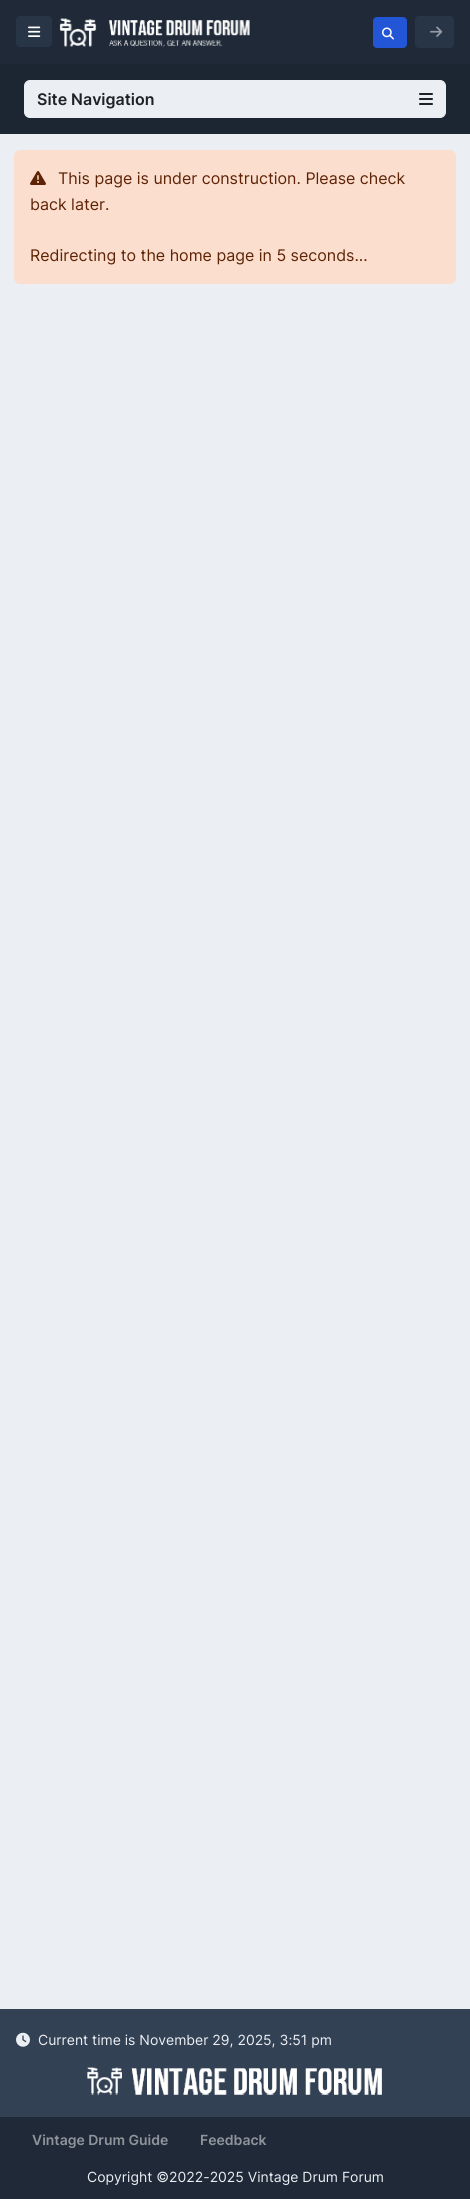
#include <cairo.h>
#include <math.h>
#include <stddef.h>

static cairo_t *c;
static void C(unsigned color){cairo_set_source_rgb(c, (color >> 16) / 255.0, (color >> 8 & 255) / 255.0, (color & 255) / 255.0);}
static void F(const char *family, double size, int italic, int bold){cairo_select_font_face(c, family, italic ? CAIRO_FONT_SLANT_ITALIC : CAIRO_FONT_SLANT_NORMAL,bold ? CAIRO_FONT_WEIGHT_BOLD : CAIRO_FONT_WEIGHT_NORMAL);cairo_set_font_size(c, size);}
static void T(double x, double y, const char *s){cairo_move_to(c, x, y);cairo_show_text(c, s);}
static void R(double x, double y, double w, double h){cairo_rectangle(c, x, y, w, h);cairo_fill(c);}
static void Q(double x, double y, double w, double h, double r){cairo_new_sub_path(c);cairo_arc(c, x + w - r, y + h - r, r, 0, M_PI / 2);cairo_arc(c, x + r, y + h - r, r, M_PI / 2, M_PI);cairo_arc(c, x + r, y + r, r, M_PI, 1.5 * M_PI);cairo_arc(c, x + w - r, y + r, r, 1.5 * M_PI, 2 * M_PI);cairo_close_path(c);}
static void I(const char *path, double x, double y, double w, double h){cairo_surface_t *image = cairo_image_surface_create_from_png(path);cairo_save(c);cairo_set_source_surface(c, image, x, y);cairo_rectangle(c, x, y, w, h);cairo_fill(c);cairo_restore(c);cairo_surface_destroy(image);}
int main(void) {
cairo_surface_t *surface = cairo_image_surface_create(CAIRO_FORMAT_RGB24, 470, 2199);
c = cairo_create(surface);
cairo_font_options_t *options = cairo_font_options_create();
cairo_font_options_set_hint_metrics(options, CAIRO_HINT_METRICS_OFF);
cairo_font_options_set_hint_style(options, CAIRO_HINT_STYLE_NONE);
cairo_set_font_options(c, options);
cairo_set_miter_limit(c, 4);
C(0xebeef2);
cairo_paint(c);
C(0x1f2937);
R(0,0,470,64);
C(0x283547);
Q(16.5,16.5,35,30,3.5);
cairo_fill_preserve(c);
cairo_set_line_width(c,1);
cairo_stroke(c);
I("1.png",28,26,13,11);
I("2.png",59,18,191,29);
C(0x2356d7);
Q(373.5,17.5,33,30,3.5);
cairo_fill_preserve(c);
cairo_stroke(c);
I("3.png",382,27,12,13);
C(0x283547);
Q(415.5,16.5,38,31,3.5);
cairo_fill_preserve(c);
cairo_stroke(c);
I("4.png",430,26,13,11);
C(0x1c2532);
R(0,64,470,70);
C(0xebeef2);
Q(24.5,80.5,421,37,5.5);
cairo_fill_preserve(c);
cairo_stroke(c);
F("Inter SemiBold",16,0,0);
C(0x1e2226);
T(37,105,"Site Navigation");
I("5.png",419,93,14,12);
C(0xfbdece);
Q(14,150,442,134,6);
cairo_fill(c);
I("6.png",30,171,16,14);
F("Inter",16,0,0);
C(0x5e2305);
T(58,184,"This page is under construction. Please check");
T(30,210,"back later.");
T(30,261,"Redirecting to the home page in 5 seconds...");
C(0x334155);
R(0,2009,470,108);
I("7.png",16,2032,14,15);
F("Inter",14,0,0);
C(0xebeef2);
T(38,2045,"Current time is November 29, 2025, 3:51 pm");
I("8.png",87,2067,295,28);
C(0x1f2937);
R(0,2117,470,82);
F("Inter SemiBold",14,0,0);
C(0x8f949b);
T(32,2145,"Vintage Drum Guide");
T(200,2145,"Feedback");
F("Inter",14,0,0);
C(0xebeef2);
T(87,2182,"Copyright ©2022-2025 Vintage Drum Forum");
cairo_surface_write_to_png(surface, "o.png");
cairo_font_options_destroy(options);
cairo_destroy(c);
cairo_surface_destroy(surface);
return 0;
}
